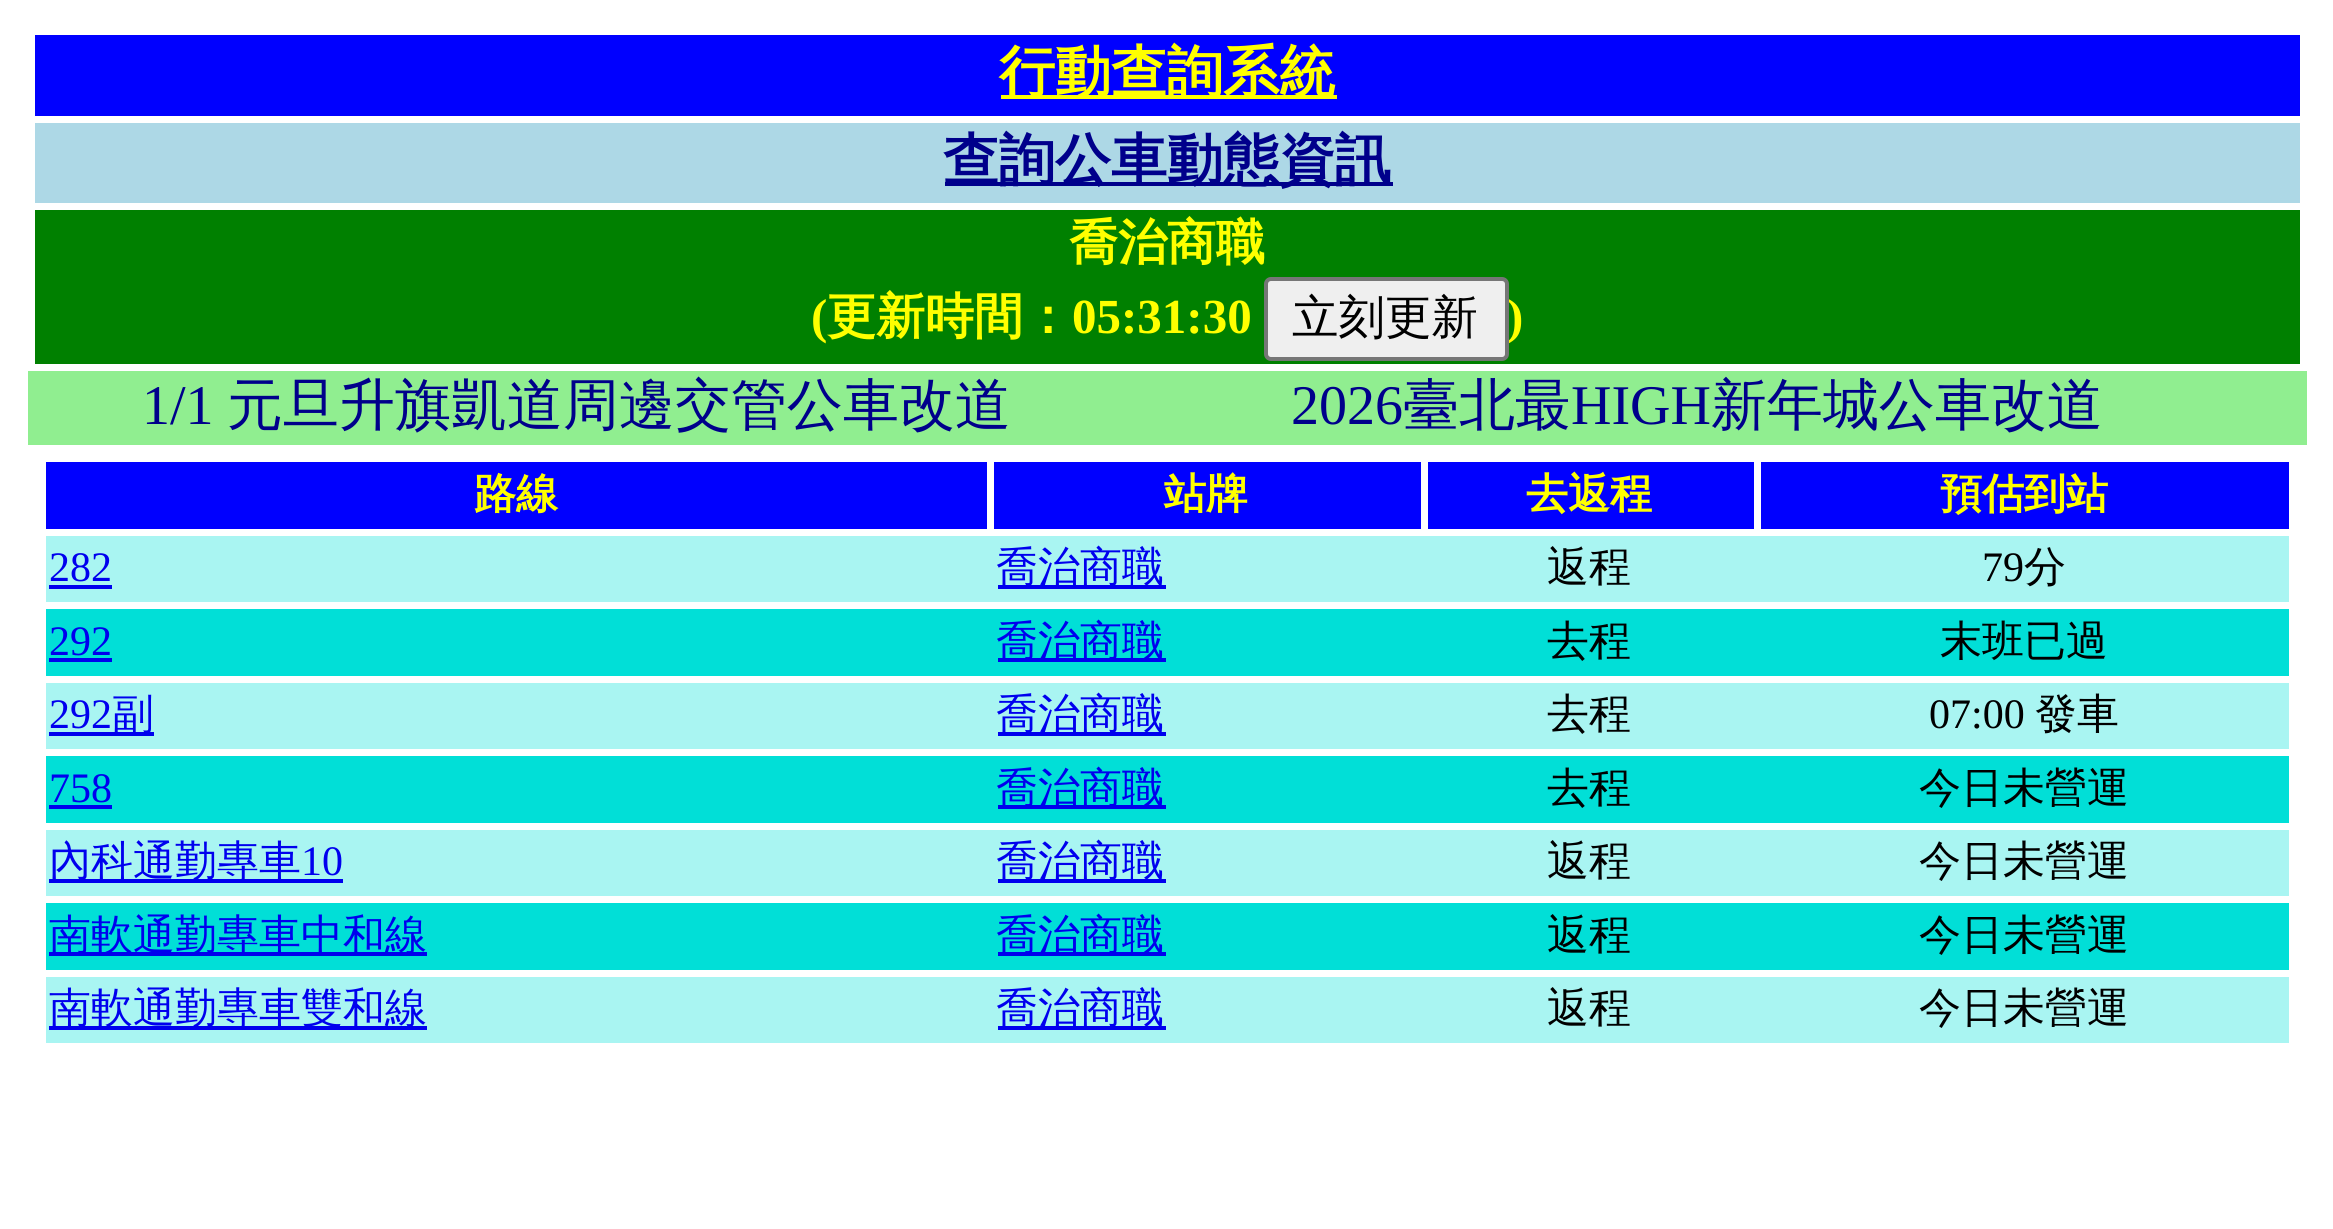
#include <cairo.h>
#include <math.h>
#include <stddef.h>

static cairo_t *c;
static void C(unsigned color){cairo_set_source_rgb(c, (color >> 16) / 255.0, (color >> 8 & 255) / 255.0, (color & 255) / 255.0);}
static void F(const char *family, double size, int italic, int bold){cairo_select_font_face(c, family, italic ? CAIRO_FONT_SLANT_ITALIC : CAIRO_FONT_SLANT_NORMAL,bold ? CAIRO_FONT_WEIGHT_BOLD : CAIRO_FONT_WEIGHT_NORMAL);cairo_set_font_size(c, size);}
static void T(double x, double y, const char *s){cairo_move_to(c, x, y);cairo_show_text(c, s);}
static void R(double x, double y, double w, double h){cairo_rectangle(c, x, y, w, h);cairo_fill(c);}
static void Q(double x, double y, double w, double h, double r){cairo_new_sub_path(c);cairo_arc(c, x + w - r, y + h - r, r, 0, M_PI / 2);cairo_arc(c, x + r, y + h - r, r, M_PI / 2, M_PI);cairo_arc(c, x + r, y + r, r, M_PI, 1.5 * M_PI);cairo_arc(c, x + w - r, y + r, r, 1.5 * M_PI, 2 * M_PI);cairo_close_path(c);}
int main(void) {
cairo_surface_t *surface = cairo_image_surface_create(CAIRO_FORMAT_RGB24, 2333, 1229);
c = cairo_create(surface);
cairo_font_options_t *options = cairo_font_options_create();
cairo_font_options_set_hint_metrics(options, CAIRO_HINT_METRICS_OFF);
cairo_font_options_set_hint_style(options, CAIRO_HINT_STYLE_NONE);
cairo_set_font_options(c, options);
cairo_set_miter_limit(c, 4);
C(0xffffff);
cairo_paint(c);
C(0x0000ff);
R(35,35,2265,81);
C(0xffff00);
R(1001,95,336,4);
F("WenQuanYi Zen Hei",56,0,1);
T(999,91,"行動查詢系統");
C(0xadd8e6);
R(35,123,2265,80);
C(0x00008b);
R(945,182,448,4);
T(943,179,"查詢公車動態資訊");
C(0x008000);
R(35,210,2265,154);
F("WenQuanYi Zen Hei",49,0,1);
C(0xffff00);
T(1069,259,"喬治商職");
F("Liberation Serif",49,0,1);
T(811,333,"(");
F("WenQuanYi Zen Hei",49,0,1);
T(827,333,"更新時間：");
F("Liberation Serif",49,0,1);
T(1072,333,"05:31:30");
T(1507,333,")");
C(0xefefef);
Q(1266,279,241,80,5);
cairo_fill_preserve(c);
C(0x767676);
cairo_set_line_width(c,4);
cairo_stroke(c);
F("WenQuanYi Zen Hei Medium",46.5,0,0);
C(0x000000);
T(1292,333,"立刻更新");
C(0x90ee90);
R(28,371,2279,74);
F("Liberation Serif",56,0,0);
C(0x00008b);
T(142,424,"1/1");
F("WenQuanYi Zen Hei Medium",56,0,0);
T(227,424,"元旦升旗凱道周邊交管公車改道");
F("Liberation Serif",56,0,0);
T(1291,424,"2026");
F("WenQuanYi Zen Hei Medium",56,0,0);
T(1403,424,"臺北最");
F("Liberation Serif",56,0,0);
T(1571,424,"HIGH");
F("WenQuanYi Zen Hei Medium",56,0,0);
T(1711,424,"新年城公車改道");
C(0x0000ff);
R(46,462,941,67);
F("WenQuanYi Zen Hei",42,0,1);
C(0xffff00);
T(474,508,"路線");
C(0x0000ff);
R(994,462,427,67);
C(0xffff00);
T(1164,508,"站牌");
C(0x0000ff);
R(1428,462,326,67);
C(0xffff00);
T(1526,508,"去返程");
C(0x0000ff);
R(1761,462,528,67);
C(0xffff00);
T(1940,508,"預估到站");
C(0xa9f5f2);
R(46,536,2243,66);
F("Liberation Serif",42,0,0);
C(0x0000ee);
T(49,581,"282");
R(49,585,63,4);
R(998,585,168,4);
F("WenQuanYi Zen Hei Medium",42,0,0);
T(996,581,"喬治商職");
C(0x000000);
T(1547,581,"返程");
F("Liberation Serif",42,0,0);
T(1982,581,"79");
F("WenQuanYi Zen Hei Medium",42,0,0);
T(2024,581,"分");
C(0x01dfd7);
R(46,609,2243,67);
F("Liberation Serif",42,0,0);
C(0x0000ee);
T(49,655,"292");
R(49,658,63,4);
R(998,658,168,4);
F("WenQuanYi Zen Hei Medium",42,0,0);
T(996,655,"喬治商職");
C(0x000000);
T(1547,655,"去程");
T(1940,655,"末班已過");
C(0xa9f5f2);
R(46,683,2243,66);
F("Liberation Serif",42,0,0);
C(0x0000ee);
T(49,728,"292");
R(49,732,105,4);
F("WenQuanYi Zen Hei Medium",42,0,0);
T(112,728,"副");
R(998,732,168,4);
T(996,728,"喬治商職");
C(0x000000);
T(1547,728,"去程");
F("Liberation Serif",42,0,0);
T(1929,728,"07:00");
F("WenQuanYi Zen Hei Medium",42,0,0);
T(2035,728,"發車");
C(0x01dfd7);
R(46,756,2243,67);
F("Liberation Serif",42,0,0);
C(0x0000ee);
T(49,802,"758");
R(49,805,63,4);
R(998,805,168,4);
F("WenQuanYi Zen Hei Medium",42,0,0);
T(996,802,"喬治商職");
C(0x000000);
T(1547,802,"去程");
T(1919,802,"今日未營運");
C(0xa9f5f2);
R(46,830,2243,66);
C(0x0000ee);
R(49,879,294,4);
T(49,875,"內科通勤專車");
F("Liberation Serif",42,0,0);
T(301,875,"10");
R(998,879,168,4);
F("WenQuanYi Zen Hei Medium",42,0,0);
T(996,875,"喬治商職");
C(0x000000);
T(1547,875,"返程");
T(1919,875,"今日未營運");
C(0x01dfd7);
R(46,903,2243,67);
C(0x0000ee);
R(49,952,378,4);
T(49,949,"南軟通勤專車中和線");
R(998,952,168,4);
T(996,949,"喬治商職");
C(0x000000);
T(1547,949,"返程");
T(1919,949,"今日未營運");
C(0xa9f5f2);
R(46,977,2243,66);
C(0x0000ee);
R(49,1026,378,4);
T(49,1022,"南軟通勤專車雙和線");
R(998,1026,168,4);
T(996,1022,"喬治商職");
C(0x000000);
T(1547,1022,"返程");
T(1919,1022,"今日未營運");
cairo_surface_write_to_png(surface, "o.png");
cairo_font_options_destroy(options);
cairo_destroy(c);
cairo_surface_destroy(surface);
return 0;
}
